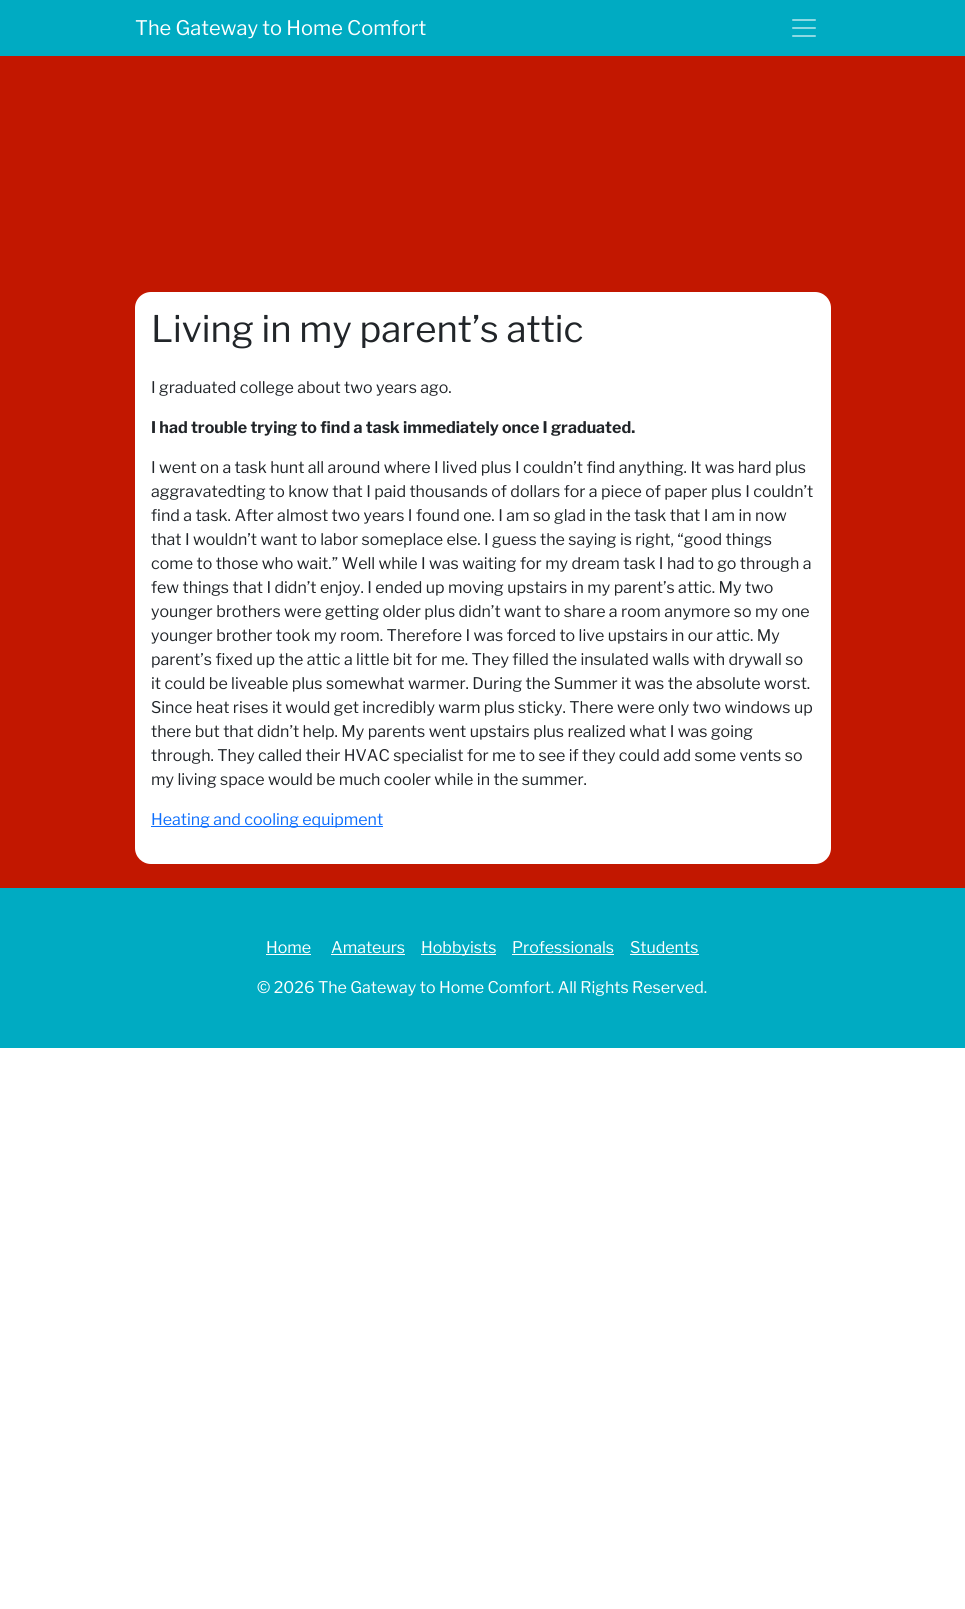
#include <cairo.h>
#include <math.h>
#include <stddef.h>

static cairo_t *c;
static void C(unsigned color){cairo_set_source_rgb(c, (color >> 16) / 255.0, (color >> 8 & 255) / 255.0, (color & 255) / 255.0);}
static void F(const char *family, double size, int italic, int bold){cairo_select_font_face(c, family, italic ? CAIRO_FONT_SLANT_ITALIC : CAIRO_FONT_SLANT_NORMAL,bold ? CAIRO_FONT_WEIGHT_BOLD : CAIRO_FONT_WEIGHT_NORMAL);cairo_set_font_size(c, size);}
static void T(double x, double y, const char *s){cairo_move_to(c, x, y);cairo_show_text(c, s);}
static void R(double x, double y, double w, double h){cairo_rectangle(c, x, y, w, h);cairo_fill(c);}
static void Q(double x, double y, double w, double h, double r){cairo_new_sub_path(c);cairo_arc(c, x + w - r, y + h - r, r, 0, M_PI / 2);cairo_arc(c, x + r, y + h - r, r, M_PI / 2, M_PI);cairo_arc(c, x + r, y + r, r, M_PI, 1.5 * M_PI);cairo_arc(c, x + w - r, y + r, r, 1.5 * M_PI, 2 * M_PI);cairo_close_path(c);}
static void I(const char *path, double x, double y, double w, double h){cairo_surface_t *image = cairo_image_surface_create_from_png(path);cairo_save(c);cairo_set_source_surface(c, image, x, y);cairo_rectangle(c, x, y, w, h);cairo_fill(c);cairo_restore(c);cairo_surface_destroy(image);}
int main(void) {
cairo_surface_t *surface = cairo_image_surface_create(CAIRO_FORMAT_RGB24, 965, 1609);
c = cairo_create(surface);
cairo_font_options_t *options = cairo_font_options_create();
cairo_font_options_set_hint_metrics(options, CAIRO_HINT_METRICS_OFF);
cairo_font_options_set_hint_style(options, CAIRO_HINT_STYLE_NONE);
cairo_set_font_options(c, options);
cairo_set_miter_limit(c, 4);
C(0xffffff);
cairo_paint(c);
C(0x00abc2);
R(0,0,965,56);
F("Libre Franklin",20,0,0);
C(0xffffff);
T(135,35,"The Gateway to Home Comfort");
I("1.png",792,19,24,18);
C(0xc21700);
R(0,56,965,832);
C(0xffffff);
Q(135,292,696,572,16);
cairo_fill(c);
F("Libre Franklin",36.5,0,0);
C(0x212529);
T(151,342,"Living in my parent’s attic");
F("Libre Franklin",16,0,0);
T(151,393,"I graduated college about two years ago.");
F("Libre Franklin",16,0,1);
T(151,433,"I had trouble trying to find a task immediately once I graduated.");
F("Libre Franklin",16,0,0);
T(151,473,"I went on a task hunt all around where I lived plus I couldn’t find anything. It was hard plus");
T(151,497,"aggravatedting to know that I paid thousands of dollars for a piece of paper plus I couldn’t");
T(151,521,"find a task. After almost two years I found one. I am so glad in the task that I am in now");
T(151,545,"that I wouldn’t want to labor someplace else. I guess the saying is right, “good things");
T(151,569,"come to those who wait.” Well while I was waiting for my dream task I had to go through a");
T(151,593,"few things that I didn’t enjoy. I ended up moving upstairs in my parent’s attic. My two");
T(151,617,"younger brothers were getting older plus didn’t want to share a room anymore so my one");
T(151,641,"younger brother took my room. Therefore I was forced to live upstairs in our attic. My");
T(151,665,"parent’s fixed up the attic a little bit for me. They filled the insulated walls with drywall so");
T(151,689,"it could be liveable plus somewhat warmer. During the Summer it was the absolute worst.");
T(151,713,"Since heat rises it would get incredibly warm plus sticky. There were only two windows up");
T(151,737,"there but that didn’t help. My parents went upstairs plus realized what I was going");
T(151,761,"through. They called their HVAC specialist for me to see if they could add some vents so");
T(151,785,"my living space would be much cooler while in the summer.");
C(0x0d6efd);
R(151,826,232,1);
T(151,825,"Heating and cooling equipment");
C(0x00abc2);
R(0,888,965,160);
C(0xffffff);
T(266,953,"Home");
R(266,954,45,1);
T(331,953,"Amateurs");
R(331,954,74,1);
R(421,954,75,1);
T(421,953,"Hobbyists");
T(512,953,"Professionals");
R(512,954,102,1);
T(630,953,"Students");
R(630,954,69,1);
T(257,993,"© 2026 The Gateway to Home Comfort. All Rights Reserved.");
cairo_surface_write_to_png(surface, "o.png");
cairo_font_options_destroy(options);
cairo_destroy(c);
cairo_surface_destroy(surface);
return 0;
}
